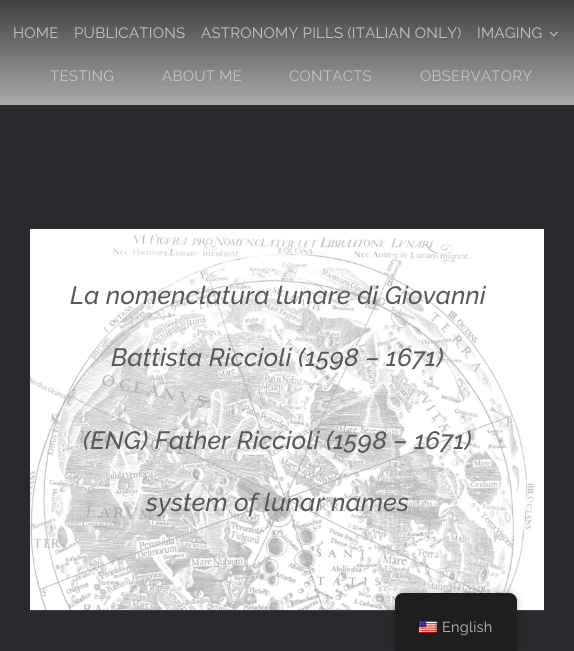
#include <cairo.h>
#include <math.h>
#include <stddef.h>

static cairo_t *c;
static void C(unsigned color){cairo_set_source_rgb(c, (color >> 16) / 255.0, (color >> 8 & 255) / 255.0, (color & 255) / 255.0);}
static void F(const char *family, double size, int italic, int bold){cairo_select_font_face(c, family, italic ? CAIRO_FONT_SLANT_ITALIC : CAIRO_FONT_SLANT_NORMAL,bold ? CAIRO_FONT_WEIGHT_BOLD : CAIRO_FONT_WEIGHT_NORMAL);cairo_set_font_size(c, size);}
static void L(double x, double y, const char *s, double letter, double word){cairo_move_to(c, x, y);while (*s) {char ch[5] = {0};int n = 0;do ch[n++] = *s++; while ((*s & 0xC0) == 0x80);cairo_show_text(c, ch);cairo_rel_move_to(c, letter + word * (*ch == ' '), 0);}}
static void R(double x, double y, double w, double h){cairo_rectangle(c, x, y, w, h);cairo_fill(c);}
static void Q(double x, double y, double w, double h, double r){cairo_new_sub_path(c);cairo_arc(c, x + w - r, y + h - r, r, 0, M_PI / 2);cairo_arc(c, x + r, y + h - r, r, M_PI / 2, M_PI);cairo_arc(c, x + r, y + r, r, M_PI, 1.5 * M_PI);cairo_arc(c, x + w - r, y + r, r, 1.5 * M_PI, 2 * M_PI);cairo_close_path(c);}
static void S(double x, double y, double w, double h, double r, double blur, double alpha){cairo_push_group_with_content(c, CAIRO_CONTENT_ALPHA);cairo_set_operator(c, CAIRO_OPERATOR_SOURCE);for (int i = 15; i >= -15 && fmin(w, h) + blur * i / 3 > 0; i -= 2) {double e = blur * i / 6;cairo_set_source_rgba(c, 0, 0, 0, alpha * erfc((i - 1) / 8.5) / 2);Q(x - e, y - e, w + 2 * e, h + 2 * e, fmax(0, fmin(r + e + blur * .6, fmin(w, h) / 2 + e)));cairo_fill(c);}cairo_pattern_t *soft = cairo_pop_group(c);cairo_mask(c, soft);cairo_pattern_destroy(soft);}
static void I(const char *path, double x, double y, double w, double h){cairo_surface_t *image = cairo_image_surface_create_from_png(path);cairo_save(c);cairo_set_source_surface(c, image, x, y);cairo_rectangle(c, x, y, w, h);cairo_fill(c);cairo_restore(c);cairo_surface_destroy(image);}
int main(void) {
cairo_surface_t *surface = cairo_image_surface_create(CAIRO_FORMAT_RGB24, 574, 651);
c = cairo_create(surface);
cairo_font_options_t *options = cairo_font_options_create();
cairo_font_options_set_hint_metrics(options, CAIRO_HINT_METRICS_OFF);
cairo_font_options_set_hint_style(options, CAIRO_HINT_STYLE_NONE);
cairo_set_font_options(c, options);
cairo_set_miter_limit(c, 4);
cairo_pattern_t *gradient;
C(0x282a2d);
cairo_paint(c);
gradient = cairo_pattern_create_linear(287,0,287,105);
cairo_pattern_add_color_stop_rgba(gradient,0,0.247,0.247,0.247,1);
cairo_pattern_add_color_stop_rgba(gradient,1,0.667,0.667,0.667,1);
cairo_set_source(c,gradient);
cairo_pattern_destroy(gradient);
R(0,0,574,105);
F("Raleway",15,0,0);
C(0xc4c4c4);
L(13,38,"HOME",.25,0);
L(74,38,"PUBLICATIONS",.25,0);
L(201,38,"ASTRONOMY PILLS (ITALIAN ONLY)",.25,0);
L(477,38,"IMAGING",.25,0);
I("1.png",549,31,9,6);
L(50,81,"TESTING",.25,0);
L(162,81,"ABOUT ME",.25,0);
L(289,81,"CONTACTS",.25,0);
L(420,81,"OBSERVATORY",.25,0);
I("2.png",30,229,514,381);
F("Raleway Medium",25,1,0);
C(0x55585c);
L(70,304,"La nomenclatura lunare di Giovanni",.25,0);
L(111,366,"Battista Riccioli (1598 – 1671)",.25,0);
L(83,449,"(ENG) Father Riccioli (1598 – 1671)",.25,0);
L(146,511,"system of lunar names",.25,0);
cairo_new_path(c);
cairo_move_to(c,30,610.5);
cairo_line_to(c,544,610.5);
C(0x535557);
cairo_set_line_width(c,1);
cairo_set_dash(c,(double[]){1,1},2,0);
cairo_stroke(c);
C(0x000000);
S(395,593,122,58,8,4,.25);
C(0x1e1e1e);
cairo_new_path(c);
cairo_move_to(c,403,593);
cairo_line_to(c,509,593);
cairo_curve_to(c,513.5,593,517,596.5,517,601);
cairo_line_to(c,517,651);
cairo_line_to(c,395,651);
cairo_line_to(c,395,601);
cairo_curve_to(c,395,596.5,398.5,593,403,593);
cairo_close_path(c);
cairo_fill(c);
I("3.png",419,621,18,12);
F("Raleway",14.5,0,0);
C(0xbdbdbd);
L(442,632,"English",.25,0);
cairo_surface_write_to_png(surface, "o.png");
cairo_font_options_destroy(options);
cairo_destroy(c);
cairo_surface_destroy(surface);
return 0;
}
